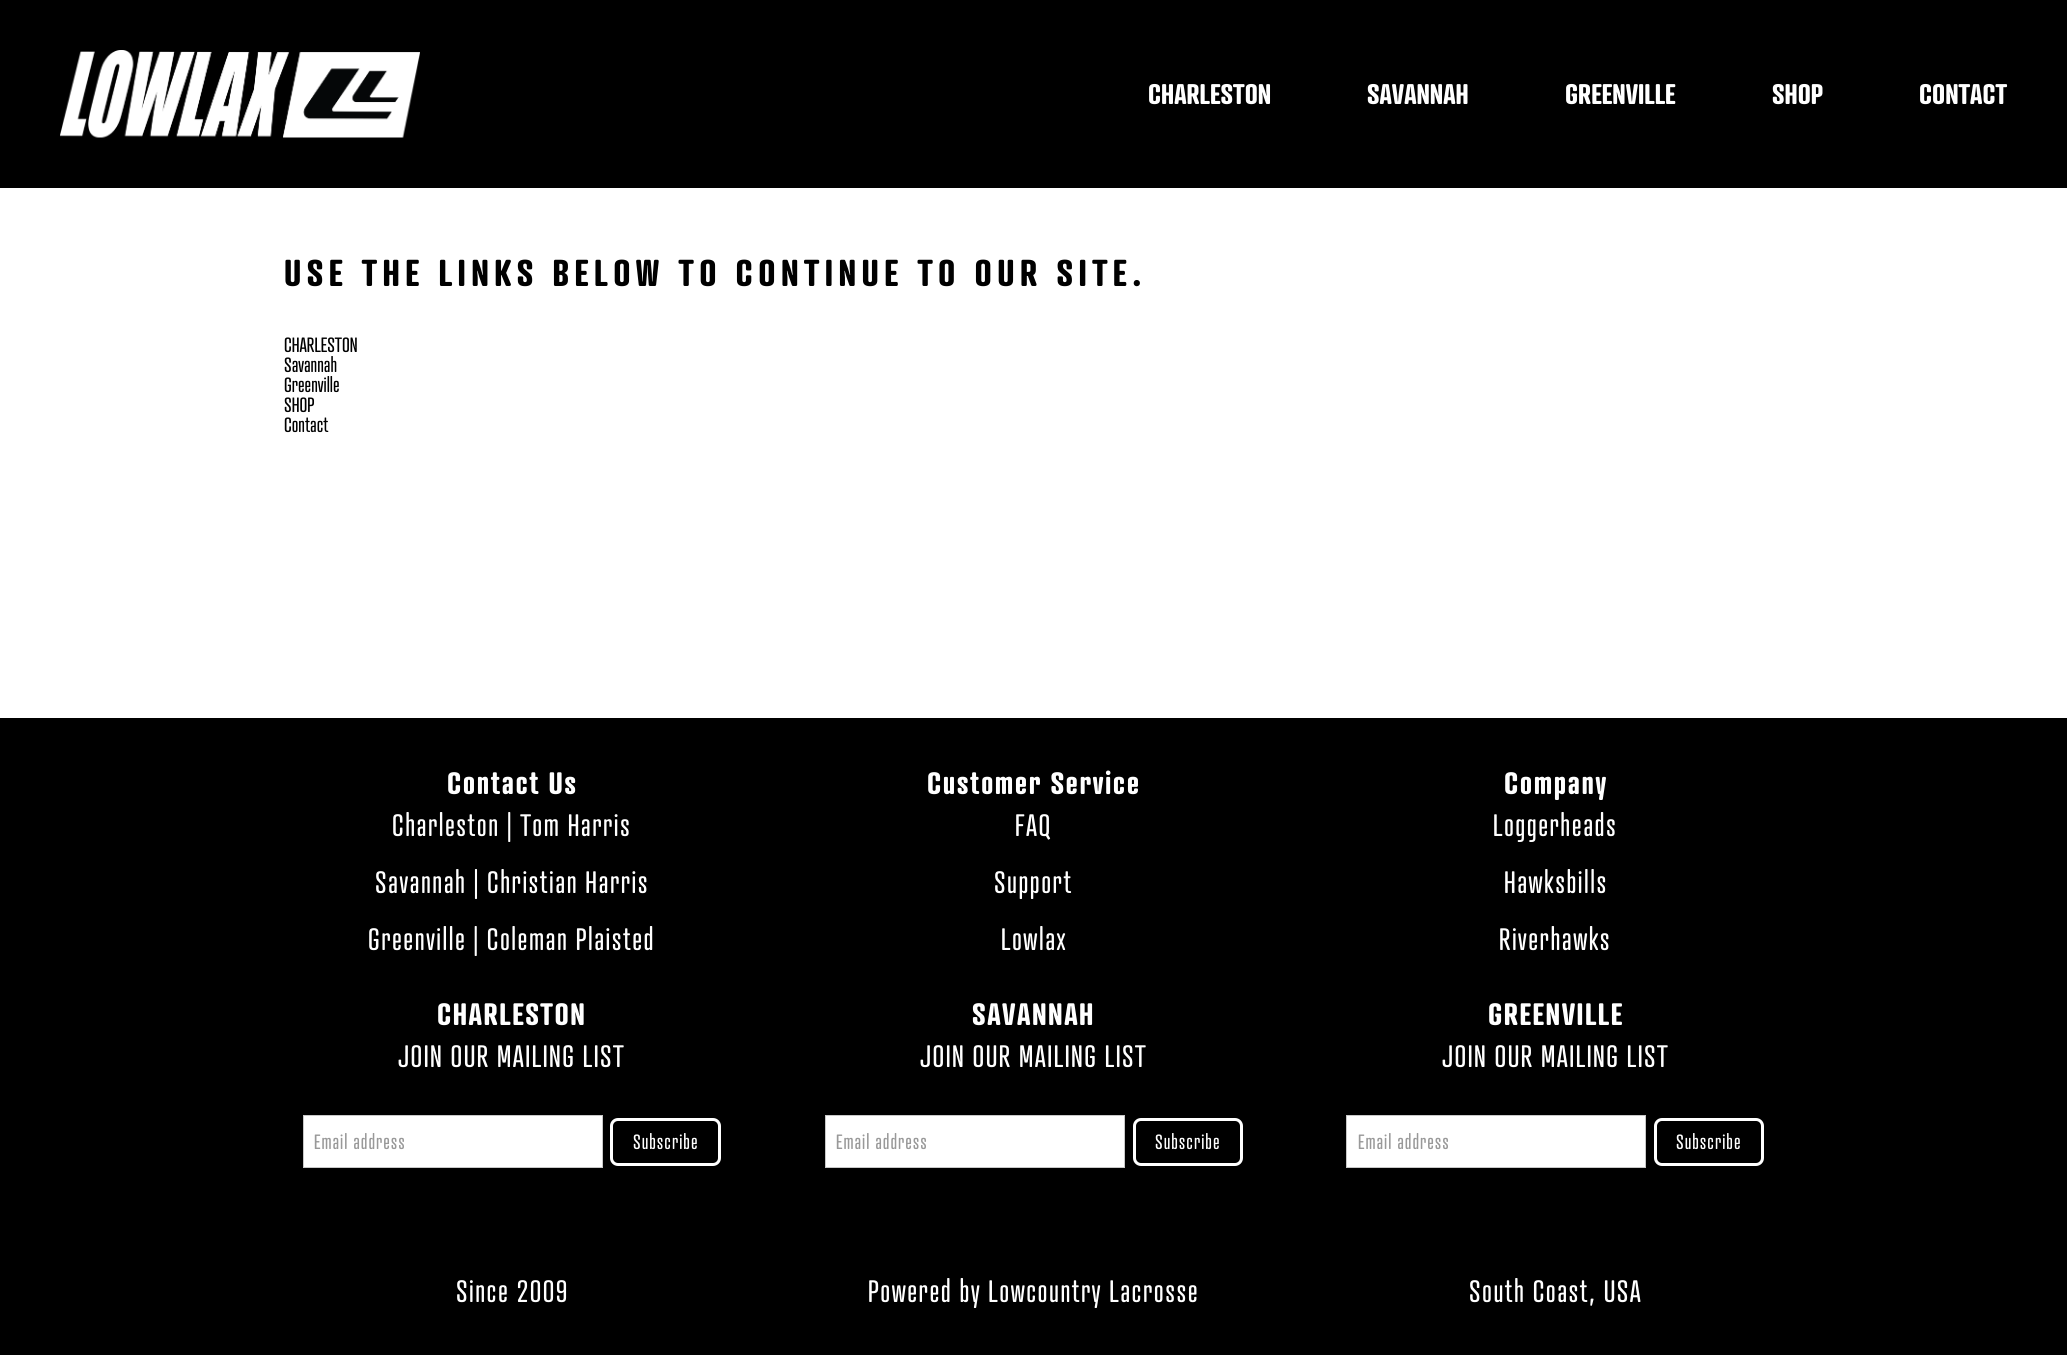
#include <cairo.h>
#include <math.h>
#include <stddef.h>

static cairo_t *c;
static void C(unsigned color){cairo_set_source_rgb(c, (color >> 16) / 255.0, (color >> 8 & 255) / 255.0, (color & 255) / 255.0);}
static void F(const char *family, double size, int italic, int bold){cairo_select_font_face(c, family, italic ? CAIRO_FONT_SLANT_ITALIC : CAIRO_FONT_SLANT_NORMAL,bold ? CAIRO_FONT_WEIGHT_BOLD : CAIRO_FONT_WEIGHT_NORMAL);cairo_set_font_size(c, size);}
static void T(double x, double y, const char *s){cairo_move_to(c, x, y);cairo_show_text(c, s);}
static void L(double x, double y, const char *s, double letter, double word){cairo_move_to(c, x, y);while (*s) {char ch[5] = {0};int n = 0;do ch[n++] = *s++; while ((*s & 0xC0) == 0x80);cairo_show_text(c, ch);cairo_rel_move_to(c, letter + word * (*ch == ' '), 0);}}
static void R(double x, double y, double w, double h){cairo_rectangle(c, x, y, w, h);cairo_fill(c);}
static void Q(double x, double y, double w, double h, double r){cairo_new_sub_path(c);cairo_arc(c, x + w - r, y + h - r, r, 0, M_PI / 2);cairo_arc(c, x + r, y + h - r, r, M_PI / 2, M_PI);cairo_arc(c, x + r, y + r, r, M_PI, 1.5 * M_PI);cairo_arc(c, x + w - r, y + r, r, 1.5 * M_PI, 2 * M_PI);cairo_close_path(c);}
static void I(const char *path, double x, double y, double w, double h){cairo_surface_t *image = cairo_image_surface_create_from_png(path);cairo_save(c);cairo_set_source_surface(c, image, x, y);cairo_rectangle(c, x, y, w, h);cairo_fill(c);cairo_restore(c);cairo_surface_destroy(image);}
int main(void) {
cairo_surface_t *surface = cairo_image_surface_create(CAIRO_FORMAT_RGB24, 2067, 1355);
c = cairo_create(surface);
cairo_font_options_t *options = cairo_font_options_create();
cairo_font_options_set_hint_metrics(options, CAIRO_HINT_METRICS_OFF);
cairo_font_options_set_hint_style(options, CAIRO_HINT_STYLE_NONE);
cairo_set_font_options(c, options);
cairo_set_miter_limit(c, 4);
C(0xffffff);
cairo_paint(c);
C(0x000000);
R(0,0,2067,188);
I("1.png",60,50,360,88);
F("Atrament",27.5,0,1);
C(0xffffff);
T(1148,104,"CHARLESTON");
T(1367,104,"SAVANNAH");
T(1565,104,"GREENVILLE");
T(1772,104,"SHOP");
T(1919,104,"CONTACT");
F("Atrament",36.25,0,1);
C(0x000000);
L(284,286,"USE THE LINKS BELOW TO CONTINUE TO OUR SITE.",5.45,0);
F("Atrament",20,0,0);
T(284,352,"CHARLESTON");
T(284,372,"Savannah");
T(284,392,"Greenville");
T(284,412,"SHOP");
T(284,432,"Contact");
R(0,718,2067,637);
F("Atrament",30,0,1);
C(0xffffff);
L(447,794,"Contact Us",1.5,0);
F("Atrament",30,0,0);
L(392,836,"Charleston | Tom Harris",1.5,0);
L(375,893,"Savannah | Christian Harris",1.5,0);
L(368,950,"Greenville | Coleman Plaisted",1.5,0);
F("Atrament",30,0,1);
L(927,794,"Customer Service",1.5,0);
F("Atrament",30,0,0);
L(1015,836,"FAQ",1.5,0);
L(994,893,"Support",1.5,0);
L(1001,950,"Lowlax",1.5,0);
F("Atrament",30,0,1);
L(1504,794,"Company",1.5,0);
F("Atrament",30,0,0);
L(1493,836,"Loggerheads",1.5,0);
L(1504,893,"Hawksbills",1.5,0);
L(1499,950,"Riverhawks",1.5,0);
F("Atrament",30,0,1);
L(437,1025,"CHARLESTON",1.5,0);
F("Atrament",30,0,0);
L(398,1067,"JOIN OUR MAILING LIST",1.5,0);
cairo_rectangle(c,303.5,1115.5,299,52);
cairo_fill_preserve(c);
C(0xc8c8c8);
cairo_set_line_width(c,1);
cairo_stroke(c);
F("Atrament",20,0,0);
C(0x999999);
L(314,1149,"Email address",1,0);
Q(611.5,1119.5,108,45,6.5);
C(0xffffff);
cairo_set_line_width(c,3);
cairo_stroke(c);
L(633,1149,"Subscribe",1,0);
F("Atrament",30,0,1);
L(972,1025,"SAVANNAH",1.5,0);
F("Atrament",30,0,0);
L(920,1067,"JOIN OUR MAILING LIST",1.5,0);
cairo_rectangle(c,825.5,1115.5,299,52);
cairo_fill_preserve(c);
C(0xc8c8c8);
cairo_set_line_width(c,1);
cairo_stroke(c);
F("Atrament",20,0,0);
C(0x999999);
L(836,1149,"Email address",1,0);
Q(1134.5,1119.5,107,45,6.5);
C(0xffffff);
cairo_set_line_width(c,3);
cairo_stroke(c);
L(1155,1149,"Subscribe",1,0);
F("Atrament",30,0,1);
L(1488,1025,"GREENVILLE",1.5,0);
F("Atrament",30,0,0);
L(1442,1067,"JOIN OUR MAILING LIST",1.5,0);
cairo_rectangle(c,1346.5,1115.5,299,52);
cairo_fill_preserve(c);
C(0xc8c8c8);
cairo_set_line_width(c,1);
cairo_stroke(c);
F("Atrament",20,0,0);
C(0x999999);
L(1358,1149,"Email address",1,0);
Q(1655.5,1119.5,107,45,6.5);
C(0xffffff);
cairo_set_line_width(c,3);
cairo_stroke(c);
L(1676,1149,"Subscribe",1,0);
F("Atrament",30,0,0);
L(456,1302,"Since 2009",1.5,0);
L(868,1302,"Powered by Lowcountry Lacrosse",1.5,0);
L(1469,1302,"South Coast, USA",1.5,0);
cairo_surface_write_to_png(surface, "o.png");
cairo_font_options_destroy(options);
cairo_destroy(c);
cairo_surface_destroy(surface);
return 0;
}
